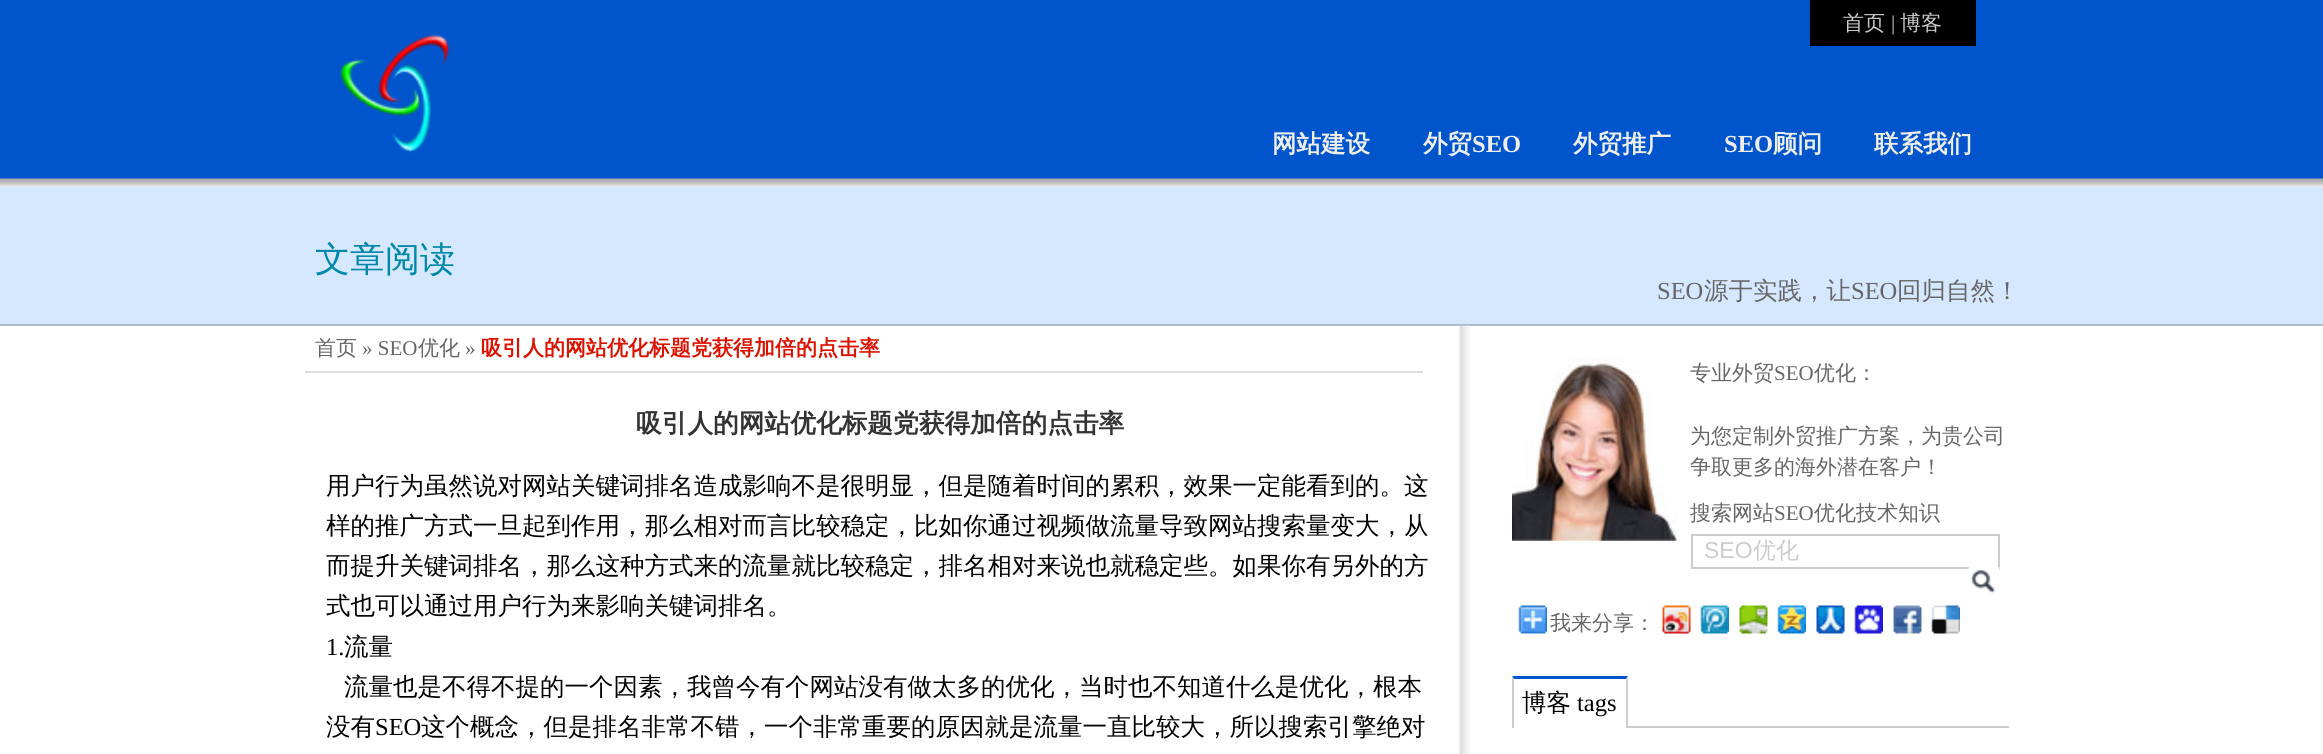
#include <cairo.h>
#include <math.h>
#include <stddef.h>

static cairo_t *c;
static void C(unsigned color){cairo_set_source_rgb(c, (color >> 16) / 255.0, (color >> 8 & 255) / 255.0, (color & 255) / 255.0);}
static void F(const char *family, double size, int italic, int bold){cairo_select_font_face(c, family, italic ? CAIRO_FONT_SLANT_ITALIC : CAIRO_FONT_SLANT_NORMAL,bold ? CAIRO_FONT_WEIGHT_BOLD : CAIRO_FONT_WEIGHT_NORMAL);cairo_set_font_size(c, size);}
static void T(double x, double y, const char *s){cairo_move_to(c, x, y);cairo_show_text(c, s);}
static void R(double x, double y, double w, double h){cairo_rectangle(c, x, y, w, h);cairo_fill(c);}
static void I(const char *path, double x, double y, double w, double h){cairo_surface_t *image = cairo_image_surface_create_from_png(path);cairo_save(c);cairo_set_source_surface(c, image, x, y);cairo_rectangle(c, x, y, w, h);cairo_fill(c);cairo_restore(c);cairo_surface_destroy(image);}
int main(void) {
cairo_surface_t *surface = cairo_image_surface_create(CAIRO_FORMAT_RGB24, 2323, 754);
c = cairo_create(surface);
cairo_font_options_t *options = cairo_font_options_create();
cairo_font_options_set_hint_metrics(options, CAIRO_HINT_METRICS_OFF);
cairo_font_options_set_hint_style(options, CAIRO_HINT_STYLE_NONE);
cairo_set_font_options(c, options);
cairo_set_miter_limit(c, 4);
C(0xffffff);
cairo_paint(c);
C(0x0055cc);
R(0,0,2323,178);
I("1.png",0,178,2323,9);
C(0x000000);
R(1810,0,166,46);
F("WenQuanYi Zen Hei Medium",21,0,0);
C(0xcccccc);
T(1843,30,"首页");
F("Liberation Serif",21,0,0);
T(1891,30,"|");
F("WenQuanYi Zen Hei Medium",21,0,0);
T(1900,30,"博客");
I("2.png",339,34,111,119);
F("WenQuanYi Zen Hei",24.5,0,1);
C(0xeeeeee);
T(1272,152,"网站建设");
T(1423,152,"外贸");
F("Liberation Serif",24.5,0,1);
T(1472,152,"SEO");
F("WenQuanYi Zen Hei",24.5,0,1);
T(1573,152,"外贸推广");
F("Liberation Serif",24.5,0,1);
T(1724,152,"SEO");
F("WenQuanYi Zen Hei",24.5,0,1);
T(1773,152,"顾问");
T(1874,152,"联系我们");
C(0xd5e8ff);
R(0,187,2323,137);
C(0xaabbcc);
R(0,324,2323,2);
F("WenQuanYi Zen Hei Medium",35,0,0);
C(0x0088aa);
T(315,271,"文章阅读");
F("Liberation Serif",24.5,0,0);
C(0x666666);
T(1657,299,"SEO");
F("WenQuanYi Zen Hei Medium",24.5,0,0);
T(1704,299,"源于实践，让");
F("Liberation Serif",24.5,0,0);
T(1851,299,"SEO");
F("WenQuanYi Zen Hei Medium",24.5,0,0);
T(1897,299,"回归自然！");
I("3.png",1459,325,11,429);
C(0xdddddd);
R(305,371,1118,2);
F("WenQuanYi Zen Hei Medium",21,0,0);
C(0x666666);
T(315,355,"首页");
F("Liberation Serif",21,0,0);
T(362,355,"» SEO");
F("WenQuanYi Zen Hei Medium",21,0,0);
T(418,355,"优化");
F("Liberation Serif",21,0,0);
T(465,355,"»");
F("WenQuanYi Zen Hei",21,0,1);
C(0xdd1100);
T(481,355,"吸引人的网站优化标题党获得加倍的点击率");
F("WenQuanYi Zen Hei",25.7,0,1);
C(0x333333);
T(636,432,"吸引人的网站优化标题党获得加倍的点击率");
F("WenQuanYi Zen Hei Medium",24.5,0,0);
C(0x000000);
T(326,494,"用户行为虽然说对网站关键词排名造成影响不是很明显，但是随着时间的累积，效果一定能看到的。这");
T(326,534,"样的推广方式一旦起到作用，那么相对而言比较稳定，比如你通过视频做流量导致网站搜索量变大，从");
T(326,574,"而提升关键词排名，那么这种方式来的流量就比较稳定，排名相对来说也就稳定些。如果你有另外的方");
T(326,614,"式也可以通过用户行为来影响关键词排名。");
F("Liberation Serif",24.5,0,0);
T(326,655,"1.");
F("WenQuanYi Zen Hei Medium",24.5,0,0);
T(344,655,"流量");
T(344,695,"流量也是不得不提的一个因素，我曾今有个网站没有做太多的优化，当时也不知道什么是优化，根本");
T(326,735,"没有");
F("Liberation Serif",24.5,0,0);
T(375,735,"SEO");
F("WenQuanYi Zen Hei Medium",24.5,0,0);
T(421,735,"这个概念，但是排名非常不错，一个非常重要的原因就是流量一直比较大，所以搜索引擎绝对");
I("4.png",1512,357,165,184);
F("WenQuanYi Zen Hei Medium",21,0,0);
C(0x666666);
T(1690,380,"专业外贸");
F("Liberation Serif",21,0,0);
T(1774,380,"SEO");
F("WenQuanYi Zen Hei Medium",21,0,0);
T(1814,380,"优化：");
T(1690,443,"为您定制外贸推广方案，为贵公司");
T(1690,474,"争取更多的海外潜在客户！");
T(1690,520,"搜索网站");
F("Liberation Serif",21,0,0);
T(1774,520,"SEO");
F("WenQuanYi Zen Hei Medium",21,0,0);
T(1814,520,"优化技术知识");
cairo_rectangle(c,1692,535,307,33);
C(0xcccccc);
cairo_stroke(c);
F("Liberation Sans",23,0,0);
T(1704,558,"SEO");
F("WenQuanYi Zen Hei Medium",23,0,0);
T(1753,558,"优化");
C(0xffffff);
R(1969,567,30,2);
I("5.png",1968,567,28,27);
I("6.png",1518,605,29,29);
F("WenQuanYi Zen Hei Medium",21,0,0);
C(0x666666);
T(1550,630,"我来分享：");
I("7.png",1662,605,29,29);
I("8.png",1700,605,29,29);
I("9.png",1739,605,29,29);
I("10.png",1777,605,29,29);
I("11.png",1816,605,29,29);
I("12.png",1854,605,29,29);
I("13.png",1893,605,29,29);
I("14.png",1931,605,29,29);
C(0xcccccc);
R(1628,726,381,2);
C(0x0055cc);
cairo_new_path(c);
cairo_move_to(c,1512,676);
cairo_line_to(c,1628,676);
cairo_line_to(c,1626,679);
cairo_line_to(c,1514,679);
cairo_close_path(c);
cairo_fill(c);
C(0xcccccc);
cairo_new_path(c);
cairo_move_to(c,1628,676);
cairo_line_to(c,1628,728);
cairo_line_to(c,1626,728);
cairo_line_to(c,1626,679);
cairo_close_path(c);
cairo_fill(c);
cairo_new_path(c);
cairo_move_to(c,1512,728);
cairo_line_to(c,1512,676);
cairo_line_to(c,1514,679);
cairo_line_to(c,1514,728);
cairo_close_path(c);
cairo_fill(c);
F("WenQuanYi Zen Hei Medium",24.5,0,0);
C(0x000000);
T(1522,711,"博客");
F("Liberation Serif",24.5,0,0);
T(1577,711,"tags");
cairo_surface_write_to_png(surface, "o.png");
cairo_font_options_destroy(options);
cairo_destroy(c);
cairo_surface_destroy(surface);
return 0;
}
